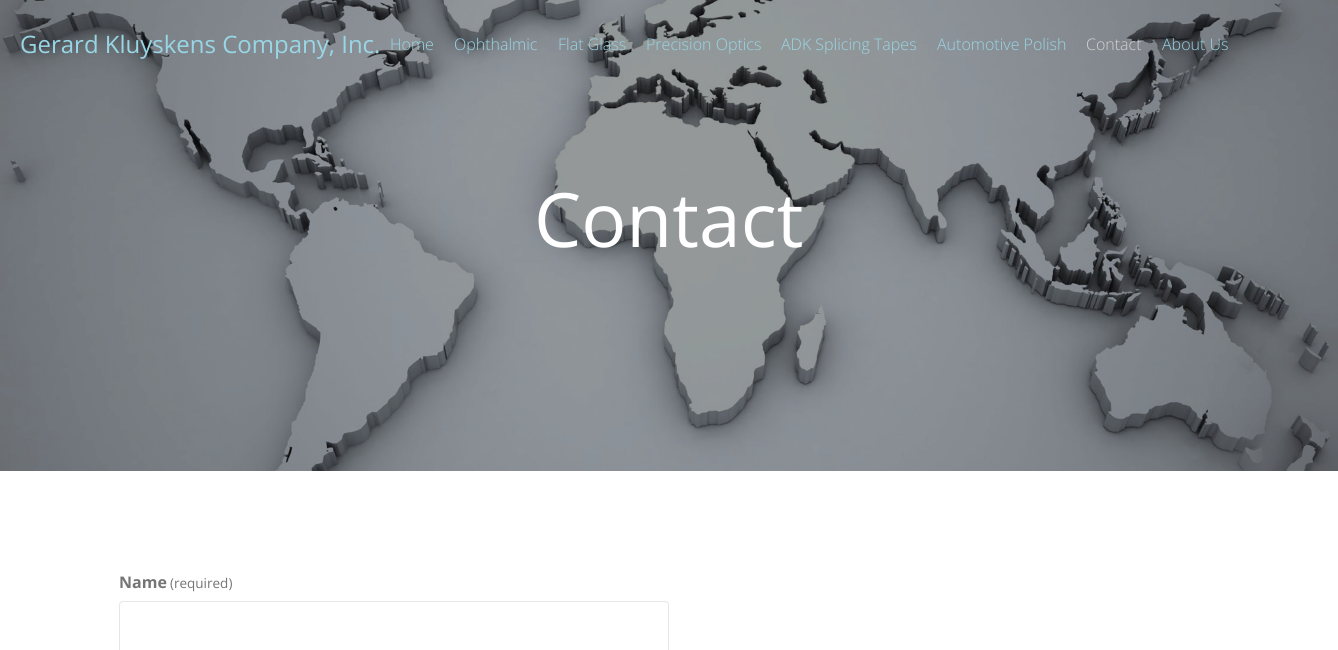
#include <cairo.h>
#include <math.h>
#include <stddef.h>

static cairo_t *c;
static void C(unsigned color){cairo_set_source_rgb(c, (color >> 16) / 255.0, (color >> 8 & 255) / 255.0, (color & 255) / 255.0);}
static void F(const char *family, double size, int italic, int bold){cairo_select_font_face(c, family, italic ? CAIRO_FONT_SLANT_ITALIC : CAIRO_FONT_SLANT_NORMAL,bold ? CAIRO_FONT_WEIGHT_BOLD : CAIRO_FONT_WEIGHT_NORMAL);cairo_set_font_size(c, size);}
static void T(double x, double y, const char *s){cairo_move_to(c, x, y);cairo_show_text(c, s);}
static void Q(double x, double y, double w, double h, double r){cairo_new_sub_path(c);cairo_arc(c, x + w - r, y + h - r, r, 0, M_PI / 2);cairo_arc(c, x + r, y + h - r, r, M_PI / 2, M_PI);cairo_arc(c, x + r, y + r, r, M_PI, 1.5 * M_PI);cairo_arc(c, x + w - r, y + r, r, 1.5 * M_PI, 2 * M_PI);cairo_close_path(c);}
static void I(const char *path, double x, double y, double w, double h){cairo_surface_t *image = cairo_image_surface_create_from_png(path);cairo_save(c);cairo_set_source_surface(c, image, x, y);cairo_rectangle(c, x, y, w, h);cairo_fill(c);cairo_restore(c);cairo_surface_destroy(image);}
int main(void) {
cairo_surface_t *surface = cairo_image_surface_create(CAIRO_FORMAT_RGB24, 1338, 650);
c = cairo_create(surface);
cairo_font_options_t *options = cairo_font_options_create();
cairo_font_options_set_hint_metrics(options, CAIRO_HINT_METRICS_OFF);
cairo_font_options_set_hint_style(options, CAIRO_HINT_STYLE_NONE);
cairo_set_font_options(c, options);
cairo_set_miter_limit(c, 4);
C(0xffffff);
cairo_paint(c);
I("1.png",0,0,1338,471);
F("Open Sans",24,0,0);
C(0x99d6e5);
T(20,53,"Gerard Kluyskens Company, Inc.");
F("Open Sans Light",16,0,0);
T(390,50,"Home");
T(454,50,"Ophthalmic");
T(558,50,"Flat Glass");
T(646,50,"Precision Optics");
T(781,50,"ADK Splicing Tapes");
T(937,50,"Automotive Polish");
C(0xd3d3d3);
T(1086,50,"Contact");
C(0x99d6e5);
T(1162,50,"About Us");
F("Open Sans",75,0,0);
C(0xffffff);
T(534,247,"Contact");
F("Open Sans",16,0,1);
C(0x757575);
T(119,588,"Name");
F("Open Sans",13.5,0,0);
T(170,588,"(required)");
Q(119.5,601.5,549,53,3.5);
C(0xe6e6e6);
cairo_set_line_width(c,1);
cairo_stroke(c);
cairo_surface_write_to_png(surface, "o.png");
cairo_font_options_destroy(options);
cairo_destroy(c);
cairo_surface_destroy(surface);
return 0;
}
